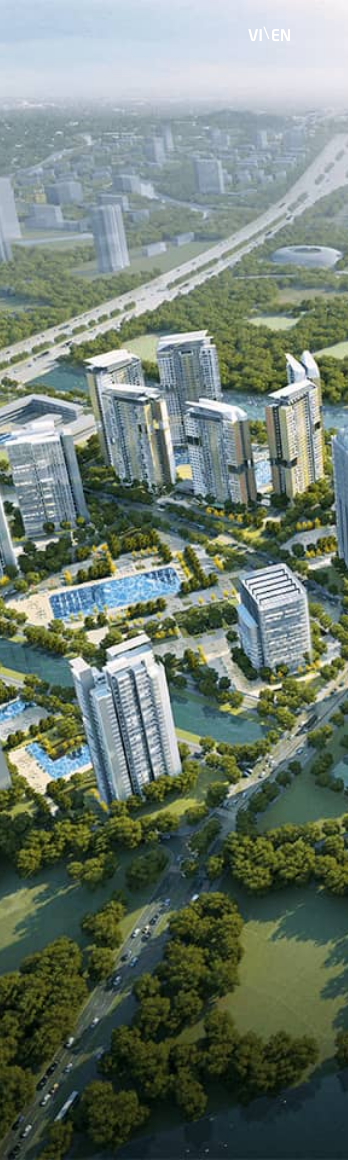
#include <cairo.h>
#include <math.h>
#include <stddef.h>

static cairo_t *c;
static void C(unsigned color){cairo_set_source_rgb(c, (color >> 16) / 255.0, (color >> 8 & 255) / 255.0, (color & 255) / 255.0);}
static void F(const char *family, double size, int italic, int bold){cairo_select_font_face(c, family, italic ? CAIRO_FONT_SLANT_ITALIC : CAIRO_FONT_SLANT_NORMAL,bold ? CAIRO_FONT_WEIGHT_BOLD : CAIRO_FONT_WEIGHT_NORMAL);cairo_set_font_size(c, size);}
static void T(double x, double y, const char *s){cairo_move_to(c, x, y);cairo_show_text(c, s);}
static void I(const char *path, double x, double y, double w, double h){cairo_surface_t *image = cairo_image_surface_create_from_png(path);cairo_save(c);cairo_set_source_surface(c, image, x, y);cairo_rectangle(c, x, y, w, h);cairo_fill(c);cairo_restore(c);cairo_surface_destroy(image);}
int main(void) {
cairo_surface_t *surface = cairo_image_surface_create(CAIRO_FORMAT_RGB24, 348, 1160);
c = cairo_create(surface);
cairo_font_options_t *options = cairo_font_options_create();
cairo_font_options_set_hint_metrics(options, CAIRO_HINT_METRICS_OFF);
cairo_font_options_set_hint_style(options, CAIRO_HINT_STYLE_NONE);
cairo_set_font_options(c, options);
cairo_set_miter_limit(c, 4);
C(0xffffff);
cairo_paint(c);
I("1.png",0,0,348,1160);
F("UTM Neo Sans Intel",16,0,1);
C(0xffffff);
T(248,41,"VI");
F("Roboto",16,0,0);
T(263,38,"\\");
F("UTM Neo Sans Intel",16,0,1);
T(271,41,"EN");
cairo_surface_write_to_png(surface, "o.png");
cairo_font_options_destroy(options);
cairo_destroy(c);
cairo_surface_destroy(surface);
return 0;
}
